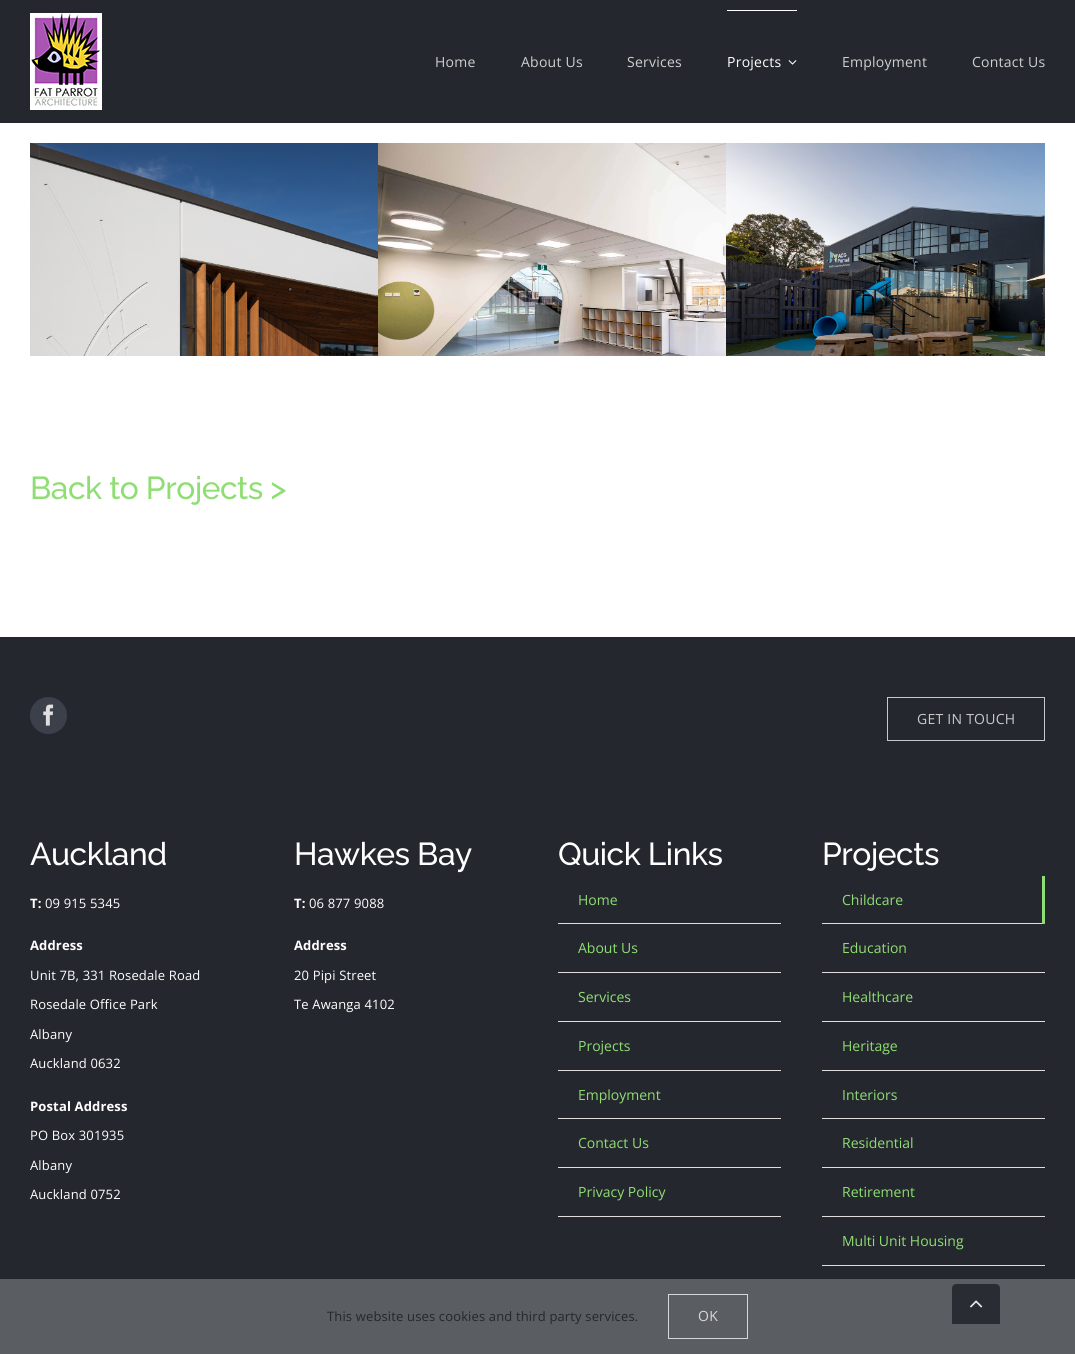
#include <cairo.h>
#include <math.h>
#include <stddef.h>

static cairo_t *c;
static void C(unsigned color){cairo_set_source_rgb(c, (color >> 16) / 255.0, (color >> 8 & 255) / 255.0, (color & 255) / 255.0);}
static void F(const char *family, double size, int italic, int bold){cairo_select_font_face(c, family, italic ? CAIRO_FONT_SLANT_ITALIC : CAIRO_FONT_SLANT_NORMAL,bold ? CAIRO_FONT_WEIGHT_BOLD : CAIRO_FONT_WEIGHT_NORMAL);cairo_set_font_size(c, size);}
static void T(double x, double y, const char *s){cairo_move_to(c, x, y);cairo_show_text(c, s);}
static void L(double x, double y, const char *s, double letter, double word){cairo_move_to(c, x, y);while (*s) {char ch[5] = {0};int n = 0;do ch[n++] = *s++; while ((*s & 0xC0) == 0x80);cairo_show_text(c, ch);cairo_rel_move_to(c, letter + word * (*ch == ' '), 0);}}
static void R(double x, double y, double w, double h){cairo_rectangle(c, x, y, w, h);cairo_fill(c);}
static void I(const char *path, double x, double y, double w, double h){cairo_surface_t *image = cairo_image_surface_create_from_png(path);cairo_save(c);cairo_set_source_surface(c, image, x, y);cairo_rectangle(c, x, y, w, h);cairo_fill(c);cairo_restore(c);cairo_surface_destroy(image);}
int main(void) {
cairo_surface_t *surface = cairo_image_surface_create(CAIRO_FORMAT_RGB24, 1075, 1354);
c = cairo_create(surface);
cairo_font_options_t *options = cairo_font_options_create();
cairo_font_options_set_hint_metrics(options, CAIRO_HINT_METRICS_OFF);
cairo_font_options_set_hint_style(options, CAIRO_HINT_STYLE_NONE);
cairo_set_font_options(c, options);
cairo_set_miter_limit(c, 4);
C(0xffffff);
cairo_paint(c);
C(0x24272d);
R(0,0,1075,123);
I("1.png",30,13,72,97);
F("Open Sans",14,0,0);
C(0xcfcfcf);
L(435,67,"Home",.25,0);
L(521,67,"About Us",.25,0);
L(627,67,"Services",.25,0);
C(0xffffff);
R(727,10,70,1);
L(727,67,"Projects",.25,0);
I("2.png",788,60,9,5);
C(0xcfcfcf);
L(842,67,"Employment",.25,0);
L(972,67,"Contact Us",.25,0);
I("3.png",30,143,348,213);
I("4.png",378,143,348,213);
I("5.png",726,143,319,213);
F("Raleway Thin",31.75,0,0);
C(0x8fde73);
L(30,499,"Back to Projects >",-.5,0);
C(0x24272d);
R(0,637,1075,642);
C(0x3b404a);
cairo_new_path(c);
cairo_arc(c,48.5,715.5,18.5,0,2 * M_PI);
cairo_fill(c);
I("6.png",43,704,11,22);
cairo_rectangle(c,887.5,697.5,157,43);
C(0xc8c9cb);
cairo_set_line_width(c,1);
cairo_stroke(c);
F("Open Sans",14,0,0);
L(917,724,"GET IN TOUCH",.25,0);
F("Raleway Thin",31.75,0,0);
C(0xffffff);
L(30,865,"Auckland",-.5,0);
F("Open Sans",13,0,1);
L(30,908,"T:",.15,0);
F("Open Sans",13,0,0);
L(45,908,"09 915 5345",.15,0);
F("Open Sans",13,0,1);
L(30,950,"Address",.15,0);
F("Open Sans",13,0,0);
L(30,980,"Unit 7B, 331 Rosedale Road",.15,0);
L(30,1009,"Rosedale Office Park",.15,0);
L(30,1039,"Albany",.15,0);
L(30,1068,"Auckland 0632",.15,0);
F("Open Sans",13,0,1);
L(30,1111,"Postal Address",.15,0);
F("Open Sans",13,0,0);
L(30,1140,"PO Box 301935",.15,0);
L(30,1170,"Albany",.15,0);
L(30,1199,"Auckland 0752",.15,0);
F("Raleway Thin",31.75,0,0);
L(294,865,"Hawkes Bay",-.5,0);
F("Open Sans",13,0,1);
L(294,908,"T:",.15,0);
F("Open Sans",13,0,0);
L(309,908,"06 877 9088",.15,0);
F("Open Sans",13,0,1);
L(294,950,"Address",.15,0);
F("Open Sans",13,0,0);
L(294,980,"20 Pipi Street",.15,0);
L(294,1009,"Te Awanga 4102",.15,0);
F("Raleway Thin",31.75,0,0);
L(558,865,"Quick Links",-.5,0);
C(0xe0dede);
R(558,923,223,1);
F("Open Sans",14,0,0);
C(0x8fde73);
T(578,905,"Home");
C(0xe0dede);
R(558,972,223,1);
C(0x8fde73);
T(578,953,"About Us");
C(0xe0dede);
R(558,1021,223,1);
C(0x8fde73);
T(578,1002,"Services");
C(0xe0dede);
R(558,1070,223,1);
C(0x8fde73);
T(578,1051,"Projects");
C(0xe0dede);
R(558,1118,223,1);
C(0x8fde73);
T(578,1100,"Employment");
C(0xe0dede);
R(558,1167,223,1);
C(0x8fde73);
T(578,1148,"Contact Us");
C(0xe0dede);
R(558,1216,223,1);
C(0x8fde73);
T(578,1197,"Privacy Policy");
F("Raleway Thin",31.75,0,0);
C(0xffffff);
L(822,865,"Projects",-.5,0);
C(0x8fde73);
cairo_new_path(c);
cairo_move_to(c,1045,876);
cairo_line_to(c,1045,924);
cairo_line_to(c,1042,923);
cairo_line_to(c,1042,876);
cairo_close_path(c);
cairo_fill(c);
C(0xe0dede);
cairo_new_path(c);
cairo_move_to(c,1045,924);
cairo_line_to(c,822,924);
cairo_line_to(c,822,923);
cairo_line_to(c,1042,923);
cairo_close_path(c);
cairo_fill(c);
F("Open Sans",14,0,0);
C(0x8fde73);
T(842,905,"Childcare");
C(0xe0dede);
R(822,972,223,1);
C(0x8fde73);
T(842,953,"Education");
C(0xe0dede);
R(822,1021,223,1);
C(0x8fde73);
T(842,1002,"Healthcare");
C(0xe0dede);
R(822,1070,223,1);
C(0x8fde73);
T(842,1051,"Heritage");
C(0xe0dede);
R(822,1118,223,1);
C(0x8fde73);
T(842,1100,"Interiors");
C(0xe0dede);
R(822,1167,223,1);
C(0x8fde73);
T(842,1148,"Residential");
C(0xe0dede);
R(822,1216,223,1);
C(0x8fde73);
T(842,1197,"Retirement");
C(0xe0dede);
R(822,1265,223,1);
C(0x8fde73);
T(842,1246,"Multi Unit Housing");
C(0x5a5d62);
R(0,1279,1075,75);
F("Open Sans",13,0,0);
C(0x24272d);
L(327,1321,"This website uses cookies and third party services.",.15,0);
cairo_rectangle(c,668.5,1294.5,79,44);
C(0xd6d7d8);
cairo_stroke(c);
F("Open Sans",14,0,0);
L(698,1321,"OK",.25,0);
C(0x292c32);
cairo_new_path(c);
cairo_move_to(c,956,1284);
cairo_line_to(c,996,1284);
cairo_curve_to(c,998,1284,1000,1286,1000,1288);
cairo_line_to(c,1000,1324);
cairo_line_to(c,952,1324);
cairo_line_to(c,952,1288);
cairo_curve_to(c,952,1286,954,1284,956,1284);
cairo_close_path(c);
cairo_fill(c);
I("7.png",970,1300,13,8);
cairo_surface_write_to_png(surface, "o.png");
cairo_font_options_destroy(options);
cairo_destroy(c);
cairo_surface_destroy(surface);
return 0;
}
